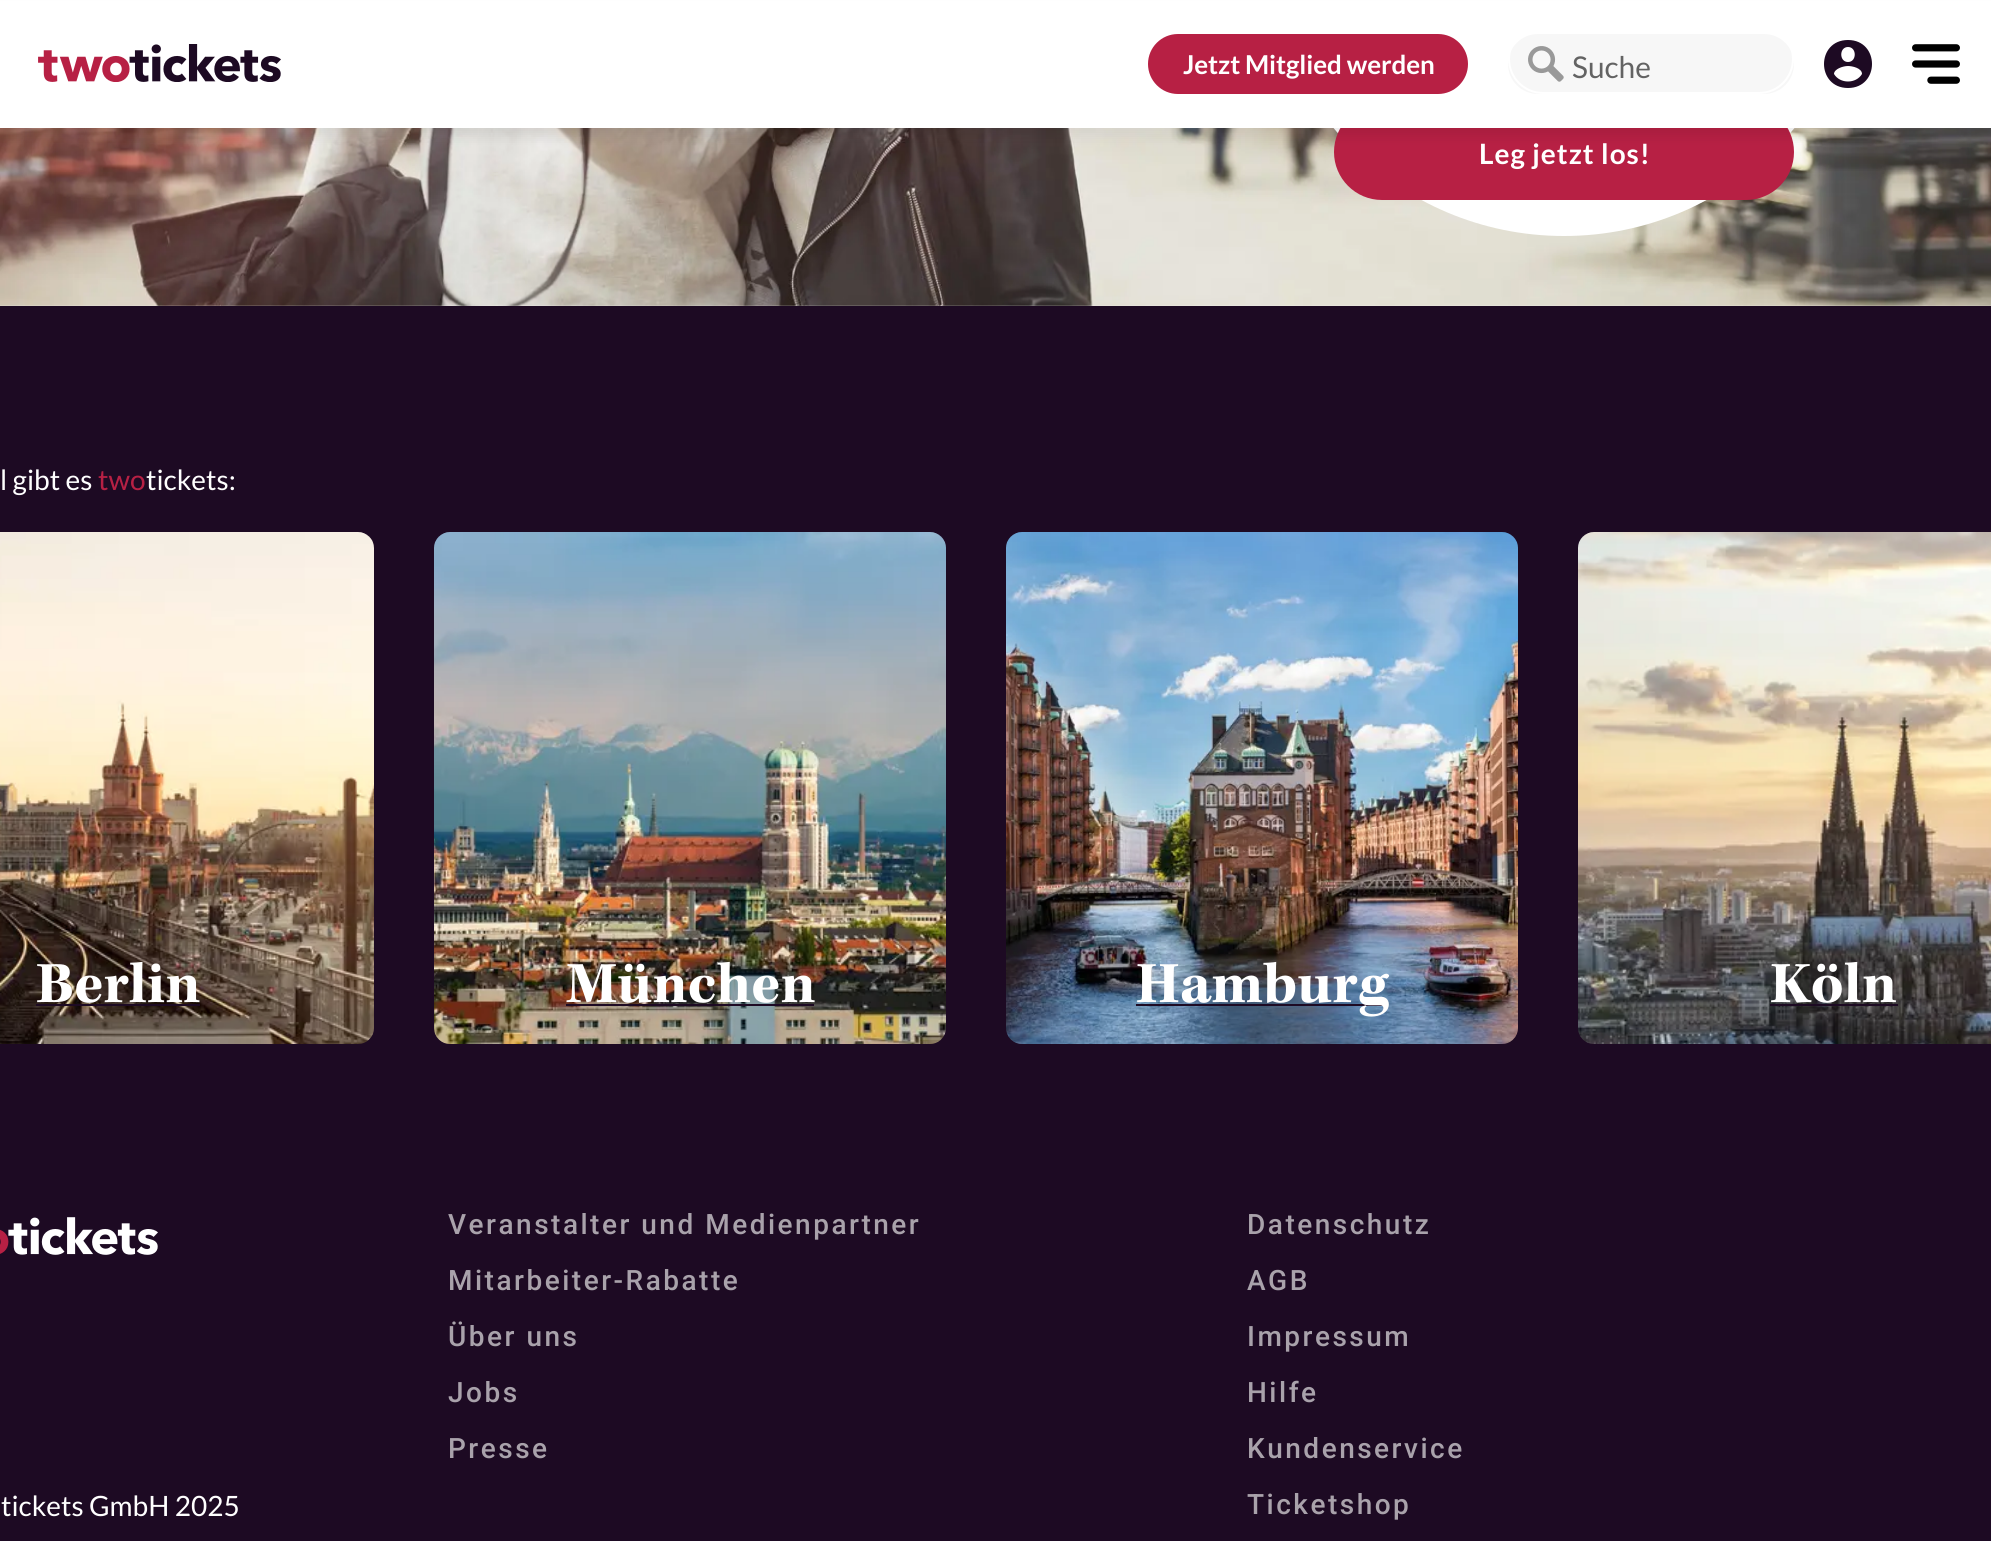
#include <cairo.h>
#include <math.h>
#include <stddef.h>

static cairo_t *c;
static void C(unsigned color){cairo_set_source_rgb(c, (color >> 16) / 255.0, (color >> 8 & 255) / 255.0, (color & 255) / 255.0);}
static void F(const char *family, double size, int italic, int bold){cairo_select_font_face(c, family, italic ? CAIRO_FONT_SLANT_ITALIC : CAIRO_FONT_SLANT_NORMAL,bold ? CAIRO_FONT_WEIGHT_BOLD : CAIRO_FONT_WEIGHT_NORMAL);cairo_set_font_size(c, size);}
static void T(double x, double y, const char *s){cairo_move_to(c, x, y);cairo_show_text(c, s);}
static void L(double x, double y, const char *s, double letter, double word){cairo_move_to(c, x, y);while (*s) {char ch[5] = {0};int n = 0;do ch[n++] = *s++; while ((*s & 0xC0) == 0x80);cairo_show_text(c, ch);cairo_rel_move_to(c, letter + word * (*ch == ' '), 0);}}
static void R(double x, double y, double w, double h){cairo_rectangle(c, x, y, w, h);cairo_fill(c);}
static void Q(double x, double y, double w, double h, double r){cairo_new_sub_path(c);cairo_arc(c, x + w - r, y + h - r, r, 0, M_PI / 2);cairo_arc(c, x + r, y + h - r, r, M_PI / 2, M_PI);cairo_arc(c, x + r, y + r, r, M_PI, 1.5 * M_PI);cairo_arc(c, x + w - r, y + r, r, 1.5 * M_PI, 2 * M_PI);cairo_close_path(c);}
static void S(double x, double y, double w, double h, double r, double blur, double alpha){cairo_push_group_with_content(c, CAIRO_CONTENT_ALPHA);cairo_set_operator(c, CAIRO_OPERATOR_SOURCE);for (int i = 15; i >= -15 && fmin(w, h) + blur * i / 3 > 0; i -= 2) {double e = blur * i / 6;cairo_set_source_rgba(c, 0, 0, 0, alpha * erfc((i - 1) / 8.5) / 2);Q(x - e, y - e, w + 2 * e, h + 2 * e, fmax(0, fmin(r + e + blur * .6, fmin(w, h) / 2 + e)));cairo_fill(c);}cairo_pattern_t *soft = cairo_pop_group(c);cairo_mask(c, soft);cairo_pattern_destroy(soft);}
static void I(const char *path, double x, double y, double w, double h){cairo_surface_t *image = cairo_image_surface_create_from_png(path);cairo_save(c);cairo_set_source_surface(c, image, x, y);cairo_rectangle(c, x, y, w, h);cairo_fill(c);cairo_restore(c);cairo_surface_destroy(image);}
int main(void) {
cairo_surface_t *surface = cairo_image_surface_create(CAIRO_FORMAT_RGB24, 1991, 1541);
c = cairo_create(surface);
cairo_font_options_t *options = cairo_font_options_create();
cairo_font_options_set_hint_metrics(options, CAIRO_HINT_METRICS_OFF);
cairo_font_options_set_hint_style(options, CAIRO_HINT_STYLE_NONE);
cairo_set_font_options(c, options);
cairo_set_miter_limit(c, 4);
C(0xffffff);
cairo_paint(c);
I("4.png",0,128,1991,178);
C(0xffffff);
Q(1264,-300,600,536,300);
cairo_fill(c);
C(0xb72044);
Q(1334,104,460,96,48);
cairo_fill(c);
C(0x000000);
S(0,8,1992,128,0,6,.08);
C(0xffffff);
R(0,1,1991,127);
I("1.png",38,44,243,38);
C(0xb72044);
Q(1148,34,320,60,30);
cairo_fill(c);
F("Lato",26,0,1);
C(0xffffff);
L(1183,74,"Jetzt Mitglied werden",-.1,0);
C(0xf7f7f7);
Q(1508,34,286,60,30);
cairo_fill(c);
I("2.png",1528,46,36,36);
Q(1509,25,284,68,34);
C(0xffffff);
cairo_stroke(c);
F("Lato",30,0,0);
C(0x636363);
T(1572,78,"Suche");
C(0x1d0a23);
cairo_new_path(c);
cairo_move_to(c,1848,88);
cairo_curve_to(c,1816,88,1816,40,1848,40);
cairo_curve_to(c,1880,40,1880,88,1848,88);
cairo_close_path(c);
cairo_move_to(c,1848,66);
cairo_curve_to(c,1843,66,1834,69,1834,74);
cairo_curve_to(c,1840,84,1856,84,1862,74);
cairo_curve_to(c,1862,68,1852,66,1848,66);
cairo_close_path(c);
cairo_move_to(c,1848,47);
cairo_curve_to(c,1839,47,1839,62,1848,62);
cairo_curve_to(c,1857,62,1857,47,1848,47);
cairo_close_path(c);
cairo_fill(c);
I("3.png",1912,44,48,40);
F("Lato",28,0,1);
C(0xffffff);
L(1479,164,"Leg jetzt los!",1,0);
C(0x1d0a23);
R(0,306,1991,1235);
F("Lato",28,0,0);
C(0xffffff);
T(0,490,"l gibt es");
C(0xb72044);
T(98,490,"two");
C(0xffffff);
T(146,490,"tickets:");
I("5.png",0,532,374,512);
I("6.png",37,961,163,42);
C(0x1d0a23);
R(36,1004,164,2);
I("7.png",434,532,512,512);
I("8.png",566,961,249,42);
R(566,1004,248,2);
I("9.png",1006,532,512,512);
R(1136,1004,252,2);
I("10.png",1137,961,253,56);
I("11.png",1578,532,413,512);
I("12.png",1771,961,125,42);
R(1770,1004,128,2);
I("13.png",0,1217,158,38);
C(0xffffff);
T(1,1516,"tickets GmbH 2025");
F("Roboto Medium",28,0,0);
C(0xa9a2ab);
L(448,1234,"Veranstalter und Medienpartner",2.5,0);
L(448,1290,"Mitarbeiter-Rabatte",2.5,0);
L(448,1346,"Über uns",2.5,0);
L(448,1402,"Jobs",2.5,0);
L(448,1458,"Presse",2.5,0);
L(1247,1234,"Datenschutz",2.5,0);
L(1247,1290,"AGB",2.5,0);
L(1247,1346,"Impressum",2.5,0);
L(1247,1402,"Hilfe",2.5,0);
L(1247,1458,"Kundenservice",2.5,0);
L(1247,1514,"Ticketshop",2.5,0);
cairo_surface_write_to_png(surface, "o.png");
cairo_font_options_destroy(options);
cairo_destroy(c);
cairo_surface_destroy(surface);
return 0;
}
